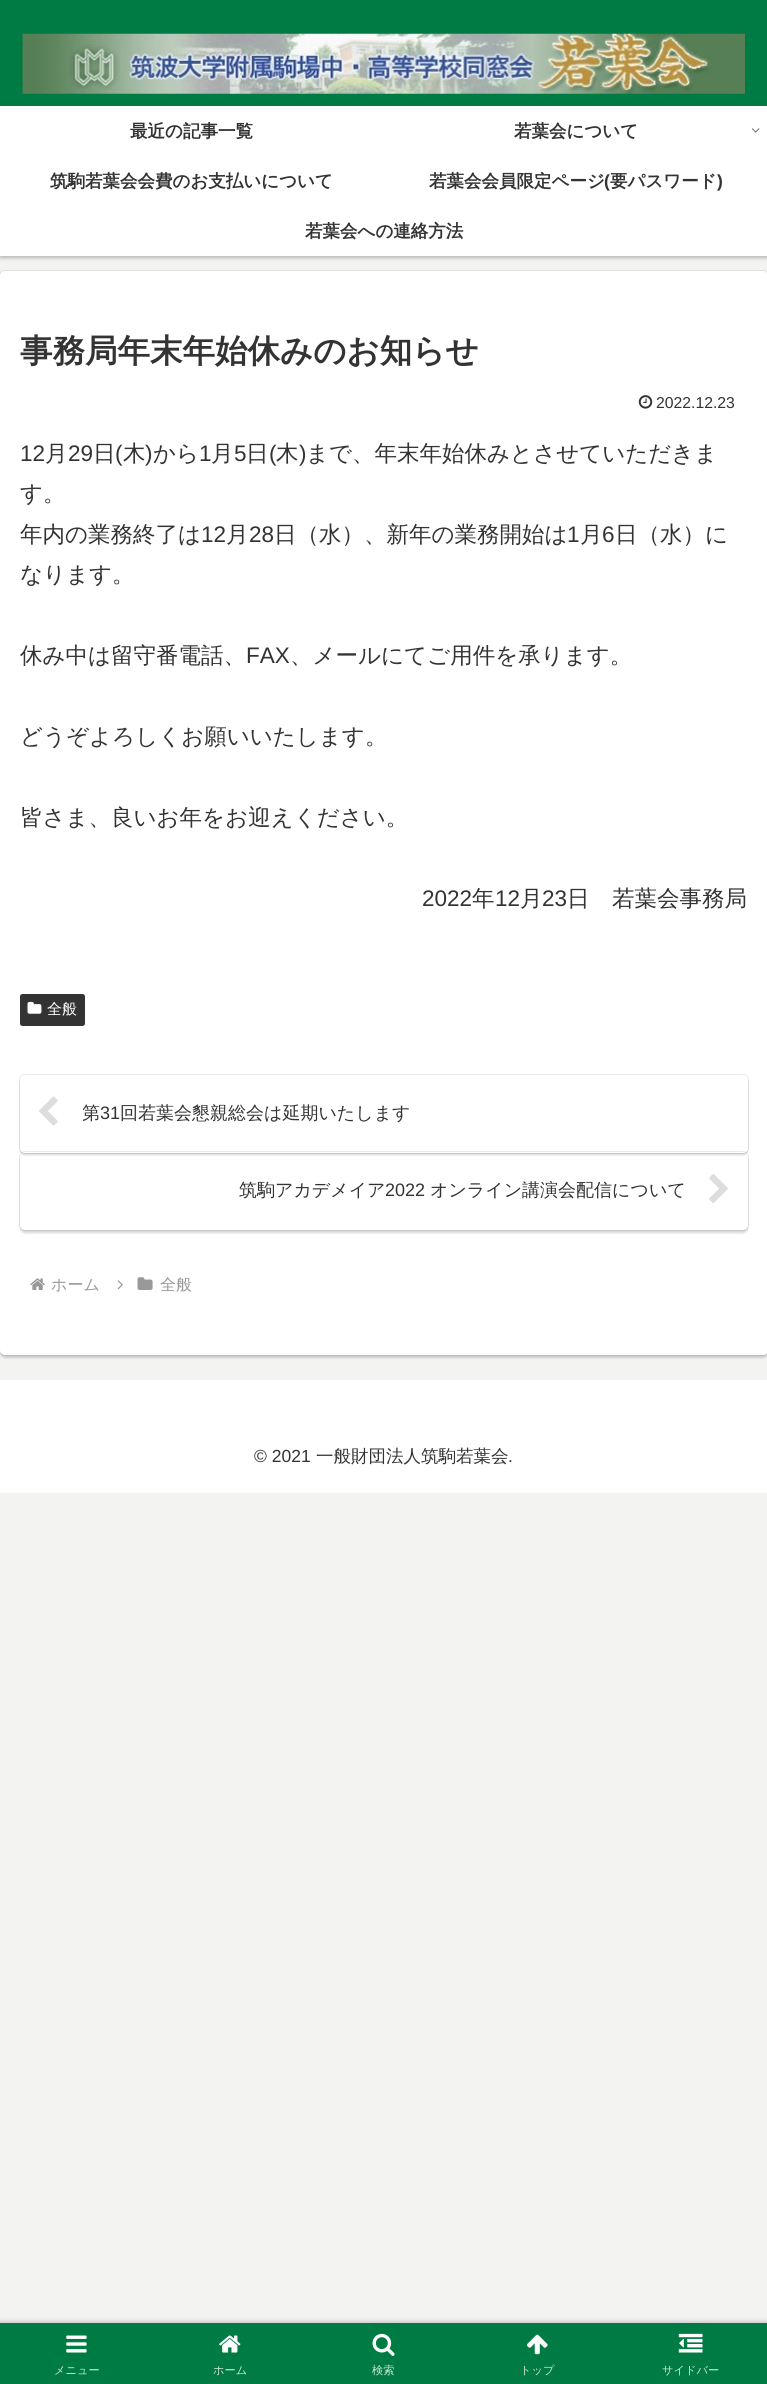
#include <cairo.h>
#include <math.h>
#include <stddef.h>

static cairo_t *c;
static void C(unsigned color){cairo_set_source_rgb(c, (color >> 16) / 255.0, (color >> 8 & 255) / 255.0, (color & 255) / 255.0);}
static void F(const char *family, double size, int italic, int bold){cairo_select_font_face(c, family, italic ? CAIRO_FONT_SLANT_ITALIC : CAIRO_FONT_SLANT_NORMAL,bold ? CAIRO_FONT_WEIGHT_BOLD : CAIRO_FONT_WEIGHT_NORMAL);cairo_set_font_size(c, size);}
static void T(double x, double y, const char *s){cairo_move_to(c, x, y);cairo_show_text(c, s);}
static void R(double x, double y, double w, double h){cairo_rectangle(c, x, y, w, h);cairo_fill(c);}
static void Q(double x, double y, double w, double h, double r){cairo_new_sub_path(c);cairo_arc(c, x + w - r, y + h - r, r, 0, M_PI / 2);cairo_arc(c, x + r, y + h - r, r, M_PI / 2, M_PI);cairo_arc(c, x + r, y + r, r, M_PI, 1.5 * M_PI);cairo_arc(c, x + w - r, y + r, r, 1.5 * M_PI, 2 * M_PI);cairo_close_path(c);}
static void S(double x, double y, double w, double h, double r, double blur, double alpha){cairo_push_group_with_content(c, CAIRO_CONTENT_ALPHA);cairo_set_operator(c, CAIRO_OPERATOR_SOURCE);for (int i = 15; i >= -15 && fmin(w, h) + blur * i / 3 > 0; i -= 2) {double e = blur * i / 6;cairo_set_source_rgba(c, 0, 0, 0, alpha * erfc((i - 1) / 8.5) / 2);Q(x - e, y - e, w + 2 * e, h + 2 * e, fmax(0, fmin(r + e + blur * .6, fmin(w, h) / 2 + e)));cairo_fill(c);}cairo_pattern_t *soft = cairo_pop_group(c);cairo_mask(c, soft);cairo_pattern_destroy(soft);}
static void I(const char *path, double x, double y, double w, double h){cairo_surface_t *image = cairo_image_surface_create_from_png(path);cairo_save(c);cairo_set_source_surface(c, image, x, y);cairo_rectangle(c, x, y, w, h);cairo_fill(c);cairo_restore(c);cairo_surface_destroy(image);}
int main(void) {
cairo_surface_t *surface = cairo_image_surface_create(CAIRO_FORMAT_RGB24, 767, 2384);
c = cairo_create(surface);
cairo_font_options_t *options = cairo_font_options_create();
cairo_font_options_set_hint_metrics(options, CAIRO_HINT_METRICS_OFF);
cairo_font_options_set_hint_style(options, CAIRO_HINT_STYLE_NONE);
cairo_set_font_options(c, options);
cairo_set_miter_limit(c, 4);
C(0xf3f3f2);
cairo_paint(c);
C(0x007b43);
R(0,0,767,106);
I("1.png",22,33,723,61);
C(0x000000);
S(0,108,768,150,0,2,.25);
C(0xffffff);
R(0,106,767,150);
F("WenQuanYi Zen Hei",17.5,0,1);
C(0x333333);
T(130,137,"最近の記事一覧");
T(514,137,"若葉会について");
I("2.png",751,128,9,5);
T(50,187,"筑駒若葉会会費のお支払いについて");
T(429,187,"若葉会会員限定ページ");
F("Liberation Sans",17.5,0,1);
T(604,187,"(");
F("WenQuanYi Zen Hei",17.5,0,1);
T(610,187,"要パスワード");
F("Liberation Sans",17.5,0,1);
T(717,187,")");
F("WenQuanYi Zen Hei",17.5,0,1);
T(305,237,"若葉会への連絡方法");
Q(-.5,270.5,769,1085,5.5);
C(0xe0e0df);
cairo_set_line_width(c,1);
cairo_stroke(c);
C(0x000000);
S(0,274,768,1084,5,1,.16);
C(0xffffff);
Q(0,271,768,1084,5);
cairo_fill(c);
F("WenQuanYi Zen Hei",32.5,0,1);
C(0x333333);
T(20,362,"事務局年末年始休みのお知らせ");
I("3.png",638,395,15,14);
F("Liberation Sans",15.75,0,0);
T(656,408,"2022.12.23");
F("Liberation Sans",22.5,0,0);
T(20,461,"12");
F("WenQuanYi Zen Hei Medium",22.5,0,0);
T(45,461,"月");
F("Liberation Sans",22.5,0,0);
T(68,461,"29");
F("WenQuanYi Zen Hei Medium",22.5,0,0);
T(93,461,"日");
F("Liberation Sans",22.5,0,0);
T(115,461,"(");
F("WenQuanYi Zen Hei Medium",22.5,0,0);
T(123,461,"木");
F("Liberation Sans",22.5,0,0);
T(145,461,")");
F("WenQuanYi Zen Hei Medium",22.5,0,0);
T(153,461,"から");
F("Liberation Sans",22.5,0,0);
T(199,461,"1");
F("WenQuanYi Zen Hei Medium",22.5,0,0);
T(211,461,"月");
F("Liberation Sans",22.5,0,0);
T(234,461,"5");
F("WenQuanYi Zen Hei Medium",22.5,0,0);
T(246,461,"日");
F("Liberation Sans",22.5,0,0);
T(269,461,"(");
F("WenQuanYi Zen Hei Medium",22.5,0,0);
T(276,461,"木");
F("Liberation Sans",22.5,0,0);
T(299,461,")");
F("WenQuanYi Zen Hei Medium",22.5,0,0);
T(306,461,"まで、年末年始休みとさせていただきま");
T(20,501,"す。");
T(20,542,"年内の業務終了は");
F("Liberation Sans",22.5,0,0);
T(201,542,"12");
F("WenQuanYi Zen Hei Medium",22.5,0,0);
T(226,542,"月");
F("Liberation Sans",22.5,0,0);
T(249,542,"28");
F("WenQuanYi Zen Hei Medium",22.5,0,0);
T(274,542,"日（水）、新年の業務開始は");
F("Liberation Sans",22.5,0,0);
T(567,542,"1");
F("WenQuanYi Zen Hei Medium",22.5,0,0);
T(580,542,"月");
F("Liberation Sans",22.5,0,0);
T(602,542,"6");
F("WenQuanYi Zen Hei Medium",22.5,0,0);
T(615,542,"日（水）に");
T(20,582,"なります。");
T(20,663,"休み中は留守番電話、");
F("Liberation Sans",22.5,0,0);
T(246,663,"FAX");
F("WenQuanYi Zen Hei Medium",22.5,0,0);
T(290,663,"、メールにてご用件を承ります。");
T(20,744,"どうぞよろしくお願いいたします。");
T(20,825,"皆さま、良いお年をお迎えください。");
F("Liberation Sans",22.5,0,0);
T(422,906,"2022");
F("WenQuanYi Zen Hei Medium",22.5,0,0);
T(472,906,"年");
F("Liberation Sans",22.5,0,0);
T(495,906,"12");
F("WenQuanYi Zen Hei Medium",22.5,0,0);
T(520,906,"月");
F("Liberation Sans",22.5,0,0);
T(542,906,"23");
F("WenQuanYi Zen Hei Medium",22.5,0,0);
T(567,906,"日　若葉会事務局");
Q(20,994,65,32,2.5);
cairo_fill(c);
I("4.png",27,1001,15,13);
F("WenQuanYi Zen Hei Medium",15,0,0);
C(0xffffff);
T(47,1014,"全般");
Q(19.5,1074.5,729,79,5.5);
C(0xebebeb);
cairo_stroke(c);
cairo_save(c);
cairo_set_fill_rule(c,CAIRO_FILL_RULE_EVEN_ODD);
cairo_new_path(c);
cairo_move_to(c,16,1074);
cairo_line_to(c,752,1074);
cairo_line_to(c,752,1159);
cairo_line_to(c,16,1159);
cairo_close_path(c);
cairo_move_to(c,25,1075);
cairo_line_to(c,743,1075);
cairo_curve_to(c,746,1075,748,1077,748,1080);
cairo_line_to(c,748,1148);
cairo_curve_to(c,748,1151,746,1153,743,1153);
cairo_line_to(c,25,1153);
cairo_curve_to(c,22,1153,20,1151,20,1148);
cairo_line_to(c,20,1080);
cairo_curve_to(c,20,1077,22,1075,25,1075);
cairo_close_path(c);
cairo_clip(c);
C(0x000000);
S(20,1078,728,77,5,1,.16);
cairo_restore(c);
I("5.png",39,1096,19,30);
cairo_save(c);
cairo_rectangle(c,83,1103,327,21);
cairo_clip(c);
F("WenQuanYi Zen Hei Medium",18,0,0);
C(0x333333);
T(82,1119,"第");
cairo_restore(c);
F("Liberation Sans",18,0,0);
C(0x333333);
T(100,1119,"31");
F("WenQuanYi Zen Hei Medium",18,0,0);
T(120,1119,"回若葉会懇親総会は延期いたします");
Q(19.5,1151.5,729,79,5.5);
cairo_set_source_rgba(c,0,0,0,0.08);
cairo_stroke(c);
cairo_save(c);
cairo_set_fill_rule(c,CAIRO_FILL_RULE_EVEN_ODD);
cairo_new_path(c);
cairo_move_to(c,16,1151);
cairo_line_to(c,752,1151);
cairo_line_to(c,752,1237);
cairo_line_to(c,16,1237);
cairo_close_path(c);
cairo_move_to(c,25,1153);
cairo_line_to(c,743,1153);
cairo_curve_to(c,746,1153,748,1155,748,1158);
cairo_line_to(c,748,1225);
cairo_curve_to(c,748,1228,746,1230,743,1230);
cairo_line_to(c,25,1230);
cairo_curve_to(c,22,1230,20,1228,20,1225);
cairo_line_to(c,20,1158);
cairo_curve_to(c,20,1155,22,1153,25,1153);
cairo_close_path(c);
cairo_clip(c);
C(0x000000);
S(20,1155,728,78,5,1,.16);
cairo_restore(c);
C(0x333333);
T(239,1196,"筑駒アカデメイア");
F("Liberation Sans",18,0,0);
T(385,1196,"2022");
F("WenQuanYi Zen Hei Medium",18,0,0);
T(430,1196,"オンライン講演会配信について");
I("6.png",709,1174,19,29);
I("7.png",30,1278,15,12);
F("WenQuanYi Zen Hei Medium",16,0,0);
C(0x999999);
T(51,1290,"ホーム");
I("8.png",117,1280,6,10);
I("9.png",137,1277,16,13);
T(160,1290,"全般");
C(0xffffff);
R(0,1380,767,113);
F("Liberation Sans",17.5,0,0);
C(0x333333);
T(254,1462,"© 2021");
F("WenQuanYi Zen Hei Medium",17.5,0,0);
T(316,1462,"一般財団法人筑駒若葉会");
F("Liberation Sans",17.5,0,0);
T(508,1462,".");
C(0xa9a9a9);
S(0,2323,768,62,0,3,1);
C(0x007b43);
R(0,2323,767,61);
I("10.png",66,2335,21,18);
F("WenQuanYi Zen Hei Medium",11.25,0,0);
C(0xcce5d9);
T(54,2374,"メニュー");
I("11.png",219,2335,22,18);
T(213,2374,"ホーム");
I("12.png",372,2333,23,23);
T(372,2374,"検索");
I("13.png",527,2334,21,21);
T(520,2374,"トップ");
I("14.png",678,2333,25,20);
T(662,2374,"サイドバー");
cairo_surface_write_to_png(surface, "o.png");
cairo_font_options_destroy(options);
cairo_destroy(c);
cairo_surface_destroy(surface);
return 0;
}
